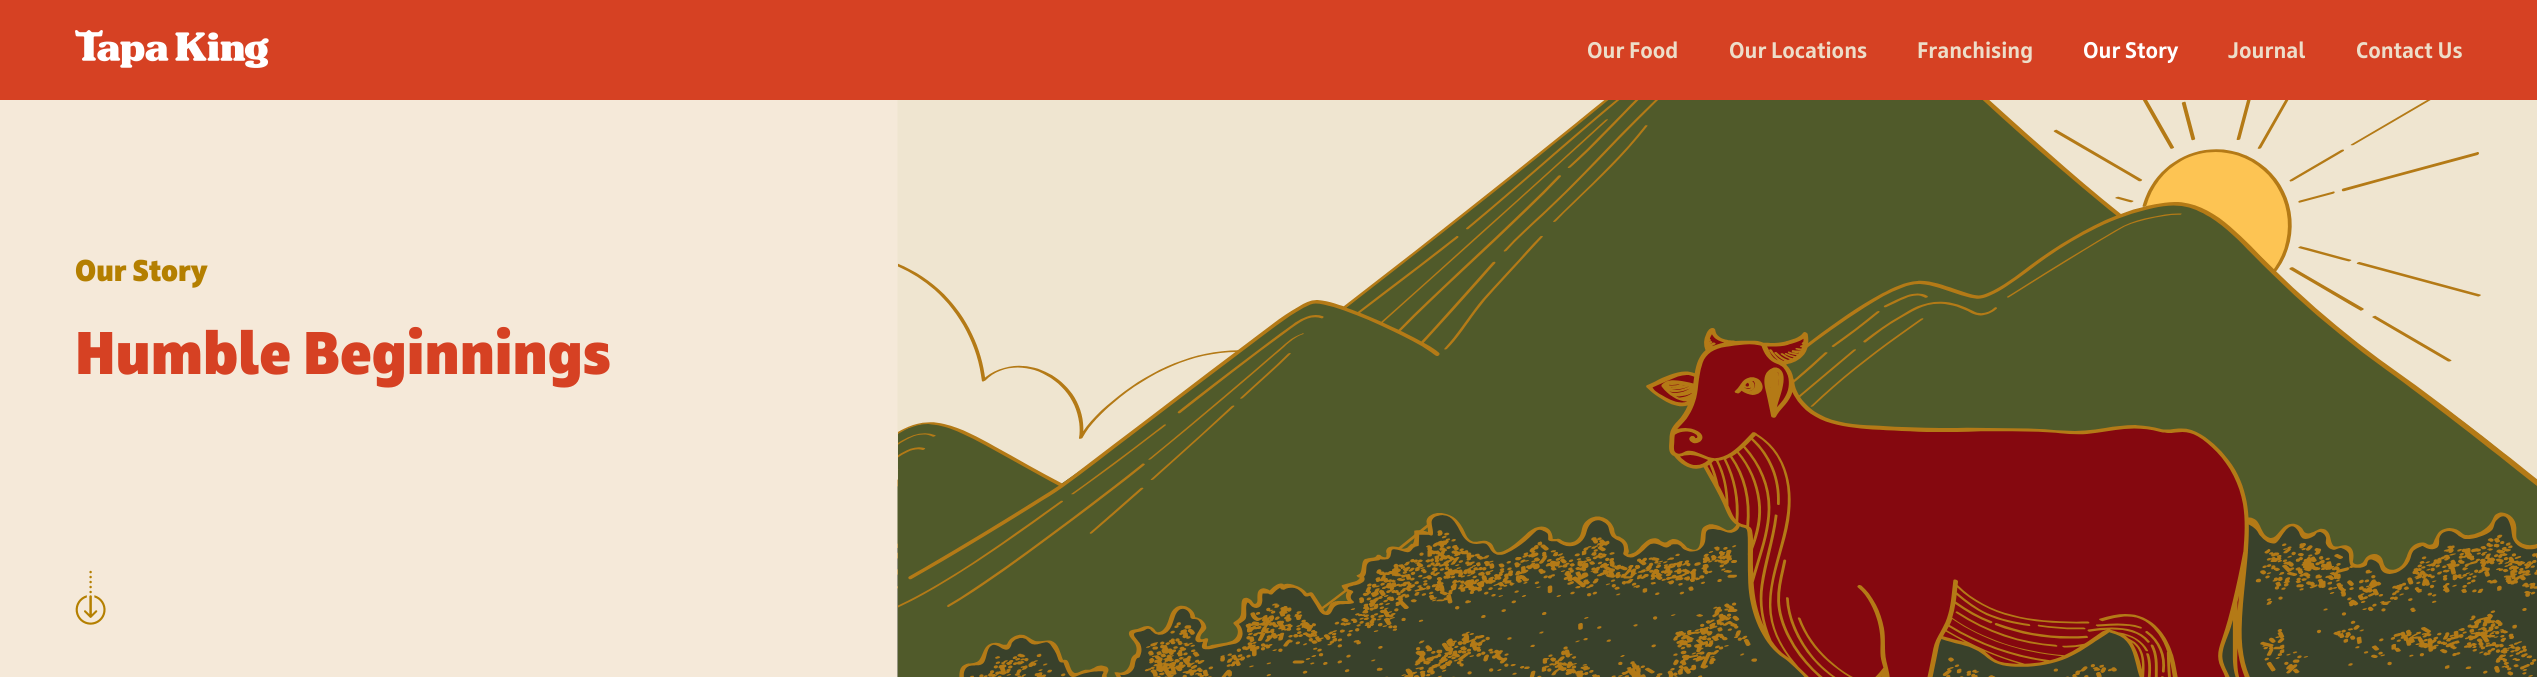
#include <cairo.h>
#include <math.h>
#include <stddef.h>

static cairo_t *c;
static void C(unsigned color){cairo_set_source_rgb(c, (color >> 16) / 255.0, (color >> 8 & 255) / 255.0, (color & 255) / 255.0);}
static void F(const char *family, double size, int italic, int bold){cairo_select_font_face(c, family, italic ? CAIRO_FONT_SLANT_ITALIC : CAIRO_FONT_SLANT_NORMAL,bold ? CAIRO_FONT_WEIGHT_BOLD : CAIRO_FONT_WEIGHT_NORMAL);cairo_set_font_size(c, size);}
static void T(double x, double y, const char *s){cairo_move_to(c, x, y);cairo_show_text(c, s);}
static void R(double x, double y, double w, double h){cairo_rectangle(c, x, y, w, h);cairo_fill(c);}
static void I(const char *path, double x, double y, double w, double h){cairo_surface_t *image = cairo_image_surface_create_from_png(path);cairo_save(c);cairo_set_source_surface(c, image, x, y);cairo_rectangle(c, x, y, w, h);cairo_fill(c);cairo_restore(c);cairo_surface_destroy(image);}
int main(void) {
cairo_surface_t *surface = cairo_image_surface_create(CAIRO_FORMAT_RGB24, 2537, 677);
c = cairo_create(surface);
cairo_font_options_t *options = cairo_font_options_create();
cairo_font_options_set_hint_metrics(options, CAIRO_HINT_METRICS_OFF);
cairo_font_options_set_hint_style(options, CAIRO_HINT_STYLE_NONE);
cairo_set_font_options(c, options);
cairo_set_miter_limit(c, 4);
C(0xf5e9d9);
cairo_paint(c);
C(0xd64123);
R(0,0,2537,100);
I("1.png",75,30,194,38);
F("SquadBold",22.5,0,0);
C(0xeddeca);
T(1587,58,"Our Food");
T(1729,58,"Our Locations");
T(1917,58,"Franchising");
C(0xffffff);
T(2083,58,"Our Story");
C(0xeddeca);
T(2228,58,"Journal");
T(2356,58,"Contact Us");
F("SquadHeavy",30,0,0);
C(0xb47f00);
T(75,281,"Our Story");
F("SquadHeavy",60,0,0);
C(0xd64123);
T(75,374,"Humble Beginnings");
I("2.png",75,570,31,55);
I("3.png",897,100,1640,577);
cairo_surface_write_to_png(surface, "o.png");
cairo_font_options_destroy(options);
cairo_destroy(c);
cairo_surface_destroy(surface);
return 0;
}
